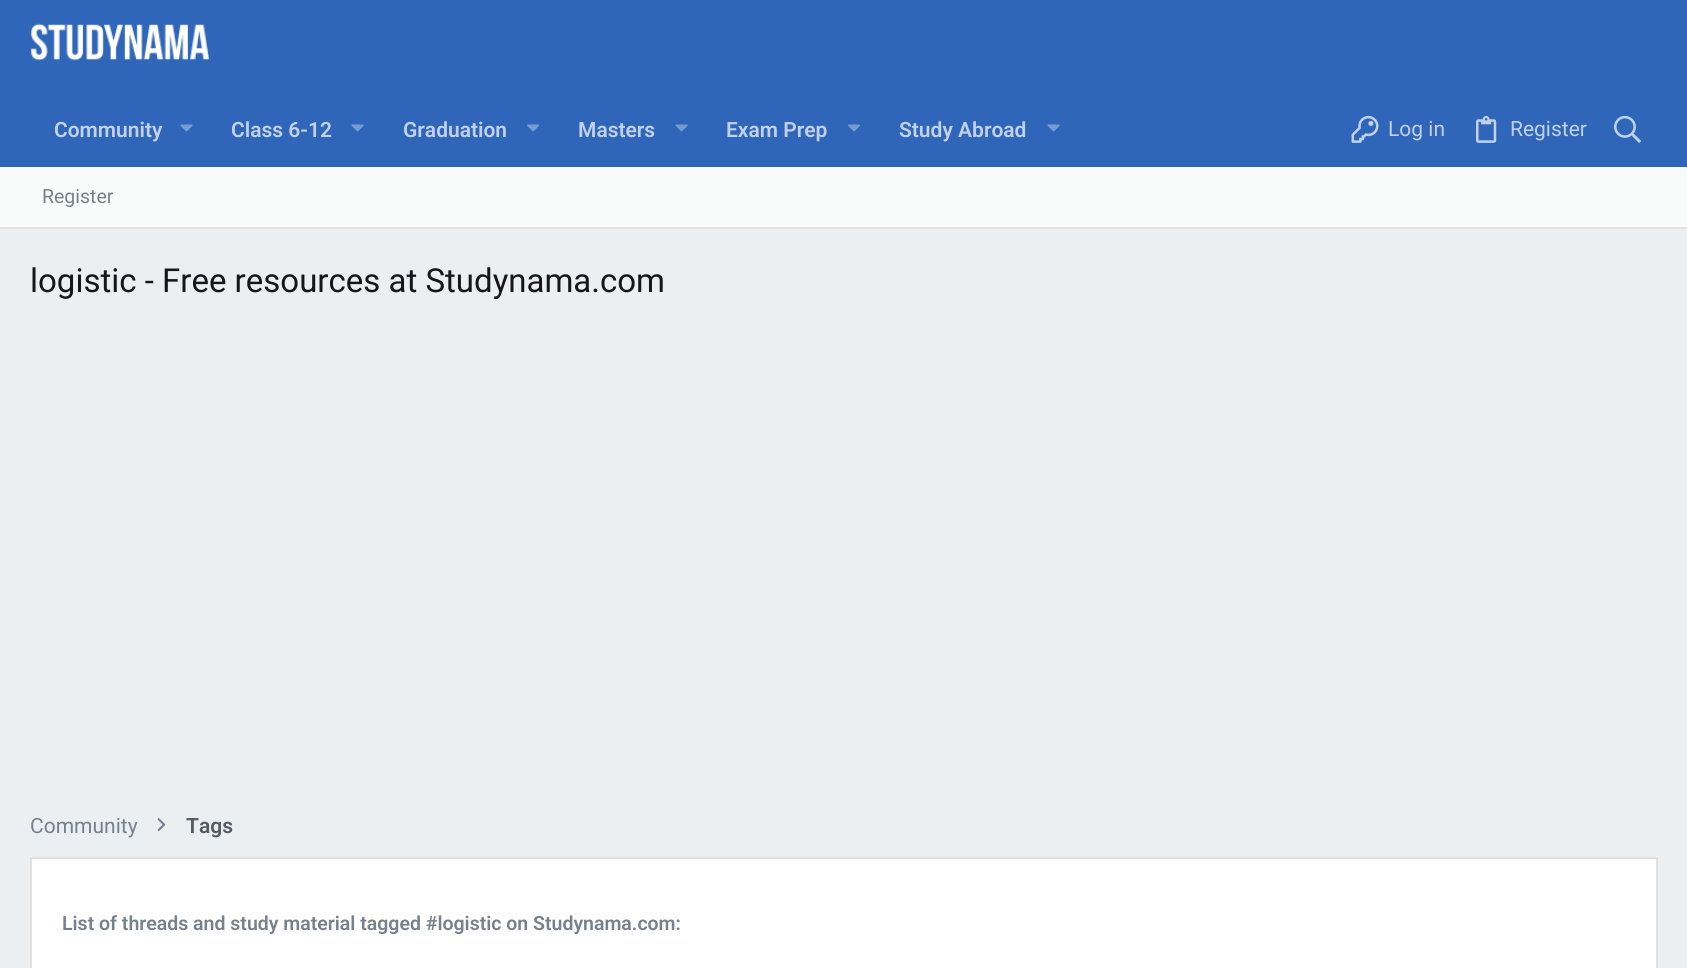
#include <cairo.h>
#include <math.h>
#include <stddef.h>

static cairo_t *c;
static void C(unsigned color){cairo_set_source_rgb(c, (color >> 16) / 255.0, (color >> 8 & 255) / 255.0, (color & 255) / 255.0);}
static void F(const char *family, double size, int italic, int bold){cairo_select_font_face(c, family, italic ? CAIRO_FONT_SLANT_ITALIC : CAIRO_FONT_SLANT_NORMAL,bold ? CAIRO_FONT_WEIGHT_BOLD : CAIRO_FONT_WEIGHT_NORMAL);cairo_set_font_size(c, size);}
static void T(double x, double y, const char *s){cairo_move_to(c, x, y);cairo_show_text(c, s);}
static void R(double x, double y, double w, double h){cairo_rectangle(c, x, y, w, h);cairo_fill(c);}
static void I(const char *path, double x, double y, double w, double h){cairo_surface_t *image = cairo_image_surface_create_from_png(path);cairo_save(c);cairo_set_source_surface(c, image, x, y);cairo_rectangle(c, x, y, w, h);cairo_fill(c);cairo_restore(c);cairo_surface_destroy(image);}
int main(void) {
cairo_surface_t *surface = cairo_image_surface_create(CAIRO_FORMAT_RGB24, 1687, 968);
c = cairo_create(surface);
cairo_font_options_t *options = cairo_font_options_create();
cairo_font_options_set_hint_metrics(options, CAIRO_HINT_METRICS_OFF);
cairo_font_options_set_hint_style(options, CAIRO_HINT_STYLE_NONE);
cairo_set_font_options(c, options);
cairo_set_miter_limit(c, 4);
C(0xeceff1);
cairo_paint(c);
C(0x2f66b9);
R(0,0,1687,167);
I("1.png",31,23,178,38);
F("Roboto SemiBold",21,0,0);
C(0xc1d1ea);
T(54,137,"Community");
I("2.png",180,124,13,8);
T(231,137,"Class 6-12");
I("2.png",351,124,13,8);
T(403,137,"Graduation");
I("3.png",527,124,13,8);
T(578,137,"Masters");
I("2.png",675,124,13,8);
T(726,137,"Exam Prep");
I("3.png",848,124,13,8);
T(899,137,"Study Abroad");
I("2.png",1047,124,13,8);
I("4.png",1351,115,28,28);
F("Roboto",21,0,0);
T(1388,136,"Log in");
I("5.png",1476,115,21,28);
T(1510,136,"Register");
I("6.png",1614,115,27,28);
C(0xf9fafa);
R(0,167,1687,60);
C(0xe0e0e0);
R(0,227,1687,2);
F("Roboto",19.5,0,0);
C(0x76818d);
T(42,203,"Register");
F("Roboto",33,0,0);
C(0x141618);
T(30,292,"logistic - Free resources at Studynama.com");
F("Roboto",21,0,0);
C(0x76818d);
T(30,833,"Community");
I("7.png",157,818,9,14);
F("Roboto SemiBold",21,0,0);
C(0x535b63);
T(186,833,"Tags");
C(0xffffff);
cairo_rectangle(c,31,858,1626,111);
cairo_fill_preserve(c);
C(0xe0e0e0);
cairo_stroke(c);
F("Roboto SemiBold",19.5,0,0);
C(0x76818d);
T(62,930,"List of threads and study material tagged #logistic on Studynama.com:");
cairo_surface_write_to_png(surface, "o.png");
cairo_font_options_destroy(options);
cairo_destroy(c);
cairo_surface_destroy(surface);
return 0;
}
